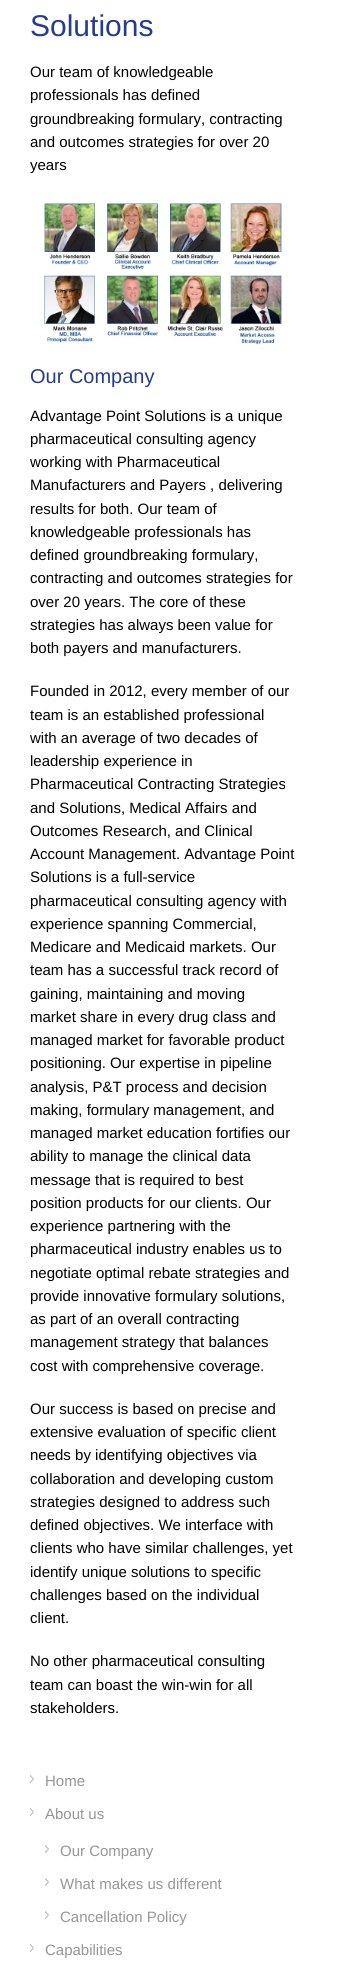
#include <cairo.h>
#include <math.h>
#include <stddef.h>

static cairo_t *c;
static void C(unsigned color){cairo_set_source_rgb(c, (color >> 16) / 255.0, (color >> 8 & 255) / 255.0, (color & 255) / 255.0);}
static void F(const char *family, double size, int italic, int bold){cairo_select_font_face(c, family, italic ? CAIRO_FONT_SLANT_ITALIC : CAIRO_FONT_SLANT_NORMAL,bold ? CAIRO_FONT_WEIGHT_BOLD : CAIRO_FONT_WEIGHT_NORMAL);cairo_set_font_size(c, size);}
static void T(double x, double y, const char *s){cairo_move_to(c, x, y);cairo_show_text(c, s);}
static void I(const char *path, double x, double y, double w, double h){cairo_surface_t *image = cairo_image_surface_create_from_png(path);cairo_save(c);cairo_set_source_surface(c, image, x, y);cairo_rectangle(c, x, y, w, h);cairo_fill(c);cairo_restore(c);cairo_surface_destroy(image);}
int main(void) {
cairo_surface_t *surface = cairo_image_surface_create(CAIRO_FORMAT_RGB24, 345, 1973);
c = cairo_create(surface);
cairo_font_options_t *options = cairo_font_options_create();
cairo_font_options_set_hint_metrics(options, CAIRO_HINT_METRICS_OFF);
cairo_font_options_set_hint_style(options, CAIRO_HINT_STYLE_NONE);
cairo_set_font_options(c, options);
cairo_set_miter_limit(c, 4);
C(0xffffff);
cairo_paint(c);
F("Liberation Sans",30,0,0);
C(0x243d90);
T(30,36,"Solutions");
F("Liberation Sans",15,0,0);
C(0x000000);
T(30,77,"Our team of knowledgeable");
T(30,100,"professionals has defined");
T(30,124,"groundbreaking formulary, contracting");
T(30,147,"and outcomes strategies for over 20");
T(30,170,"years");
I("1.png",44,203,238,142);
F("Liberation Sans",20,0,0);
C(0x243d90);
T(30,383,"Our Company");
F("Liberation Sans",15,0,0);
C(0x000000);
T(30,421,"Advantage Point Solutions is a unique");
T(30,444,"pharmaceutical consulting agency");
T(30,467,"working with Pharmaceutical");
T(30,490,"Manufacturers and Payers , delivering");
T(30,514,"results for both. Our team of");
T(30,537,"knowledgeable professionals has");
T(30,560,"defined groundbreaking formulary,");
T(30,583,"contracting and outcomes strategies for");
T(30,607,"over 20 years. The core of these");
T(30,630,"strategies has always been value for");
T(30,653,"both payers and manufacturers.");
T(30,696,"Founded in 2012, every member of our");
T(30,720,"team is an established professional");
T(30,743,"with an average of two decades of");
T(30,766,"leadership experience in");
T(30,789,"Pharmaceutical Contracting Strategies");
T(30,813,"and Solutions, Medical Affairs and");
T(30,836,"Outcomes Research, and Clinical");
T(30,859,"Account Management. Advantage Point");
T(30,882,"Solutions is a full-service");
T(30,906,"pharmaceutical consulting agency with");
T(30,929,"experience spanning Commercial,");
T(30,952,"Medicare and Medicaid markets. Our");
T(30,975,"team has a successful track record of");
T(30,999,"gaining, maintaining and moving");
T(30,1022,"market share in every drug class and");
T(30,1045,"managed market for favorable product");
T(30,1068,"positioning. Our expertise in pipeline");
T(30,1092,"analysis, P&T process and decision");
T(30,1115,"making, formulary management, and");
T(30,1138,"managed market education fortifies our");
T(30,1161,"ability to manage the clinical data");
T(30,1185,"message that is required to best");
T(30,1208,"position products for our clients. Our");
T(30,1231,"experience partnering with the");
T(30,1254,"pharmaceutical industry enables us to");
T(30,1278,"negotiate optimal rebate strategies and");
T(30,1301,"provide innovative formulary solutions,");
T(30,1324,"as part of an overall contracting");
T(30,1347,"management strategy that balances");
T(30,1371,"cost with comprehensive coverage.");
T(30,1414,"Our success is based on precise and");
T(30,1437,"extensive evaluation of specific client");
T(30,1460,"needs by identifying objectives via");
T(30,1484,"collaboration and developing custom");
T(30,1507,"strategies designed to address such");
T(30,1530,"defined objectives. We interface with");
T(30,1553,"clients who have similar challenges, yet");
T(30,1577,"identify unique solutions to specific");
T(30,1600,"challenges based on the individual");
T(30,1623,"client.");
T(30,1666,"No other pharmaceutical consulting");
T(30,1690,"team can boast the win-win for all");
T(30,1713,"stakeholders.");
I("2.png",30,1775,4,9);
C(0x969696);
T(45,1786,"Home");
I("2.png",30,1808,4,9);
T(45,1819,"About us");
I("2.png",45,1845,4,9);
T(60,1856,"Our Company");
I("2.png",45,1878,4,9);
T(60,1889,"What makes us different");
I("2.png",45,1911,4,9);
T(60,1922,"Cancellation Policy");
I("2.png",30,1944,4,9);
T(45,1955,"Capabilities");
cairo_surface_write_to_png(surface, "o.png");
cairo_font_options_destroy(options);
cairo_destroy(c);
cairo_surface_destroy(surface);
return 0;
}
